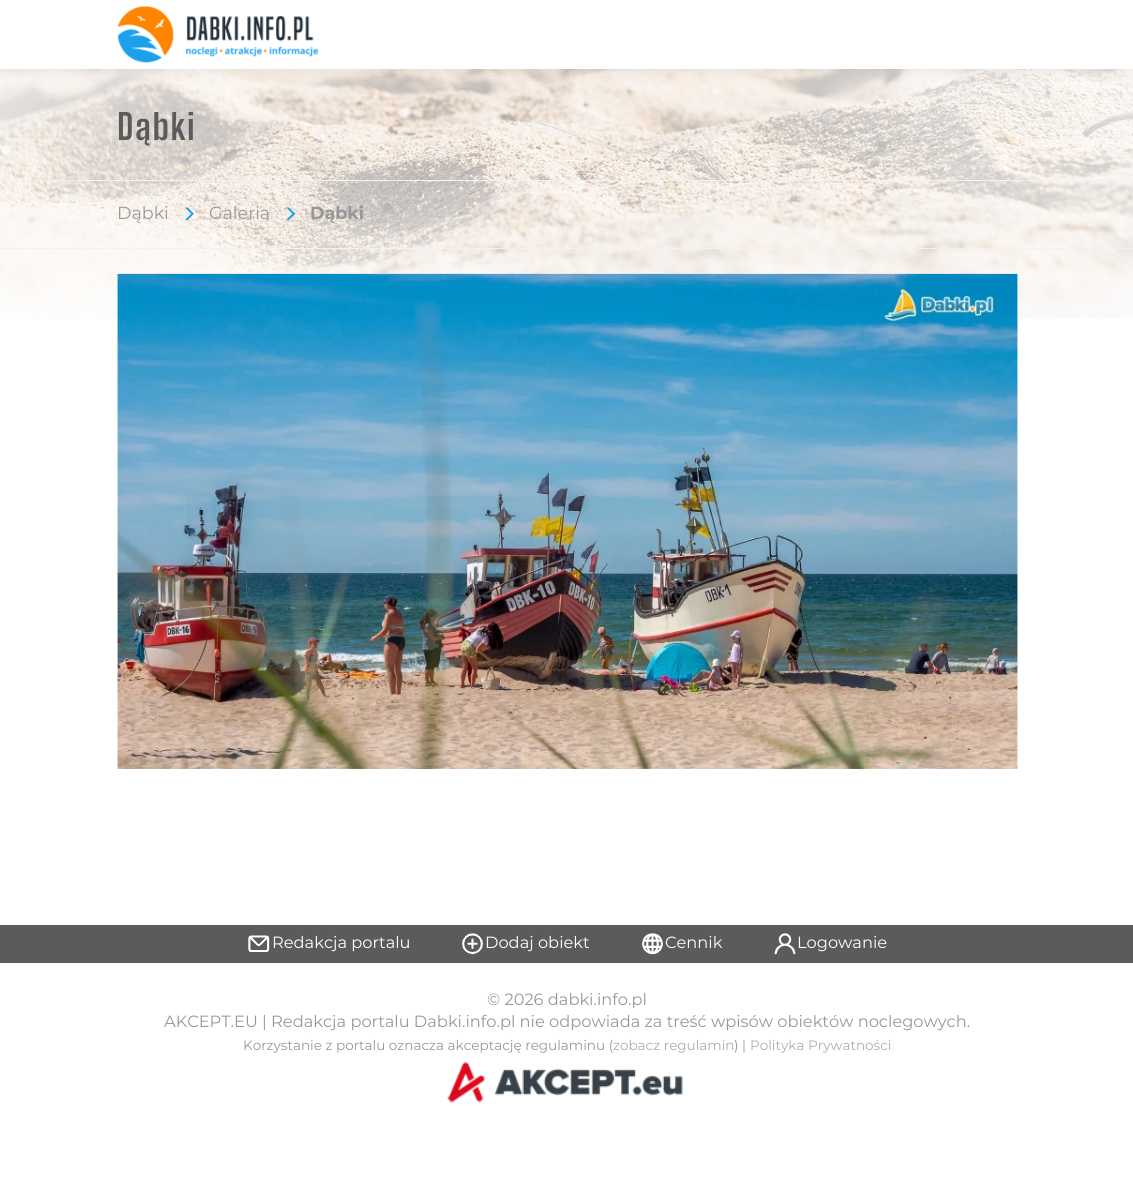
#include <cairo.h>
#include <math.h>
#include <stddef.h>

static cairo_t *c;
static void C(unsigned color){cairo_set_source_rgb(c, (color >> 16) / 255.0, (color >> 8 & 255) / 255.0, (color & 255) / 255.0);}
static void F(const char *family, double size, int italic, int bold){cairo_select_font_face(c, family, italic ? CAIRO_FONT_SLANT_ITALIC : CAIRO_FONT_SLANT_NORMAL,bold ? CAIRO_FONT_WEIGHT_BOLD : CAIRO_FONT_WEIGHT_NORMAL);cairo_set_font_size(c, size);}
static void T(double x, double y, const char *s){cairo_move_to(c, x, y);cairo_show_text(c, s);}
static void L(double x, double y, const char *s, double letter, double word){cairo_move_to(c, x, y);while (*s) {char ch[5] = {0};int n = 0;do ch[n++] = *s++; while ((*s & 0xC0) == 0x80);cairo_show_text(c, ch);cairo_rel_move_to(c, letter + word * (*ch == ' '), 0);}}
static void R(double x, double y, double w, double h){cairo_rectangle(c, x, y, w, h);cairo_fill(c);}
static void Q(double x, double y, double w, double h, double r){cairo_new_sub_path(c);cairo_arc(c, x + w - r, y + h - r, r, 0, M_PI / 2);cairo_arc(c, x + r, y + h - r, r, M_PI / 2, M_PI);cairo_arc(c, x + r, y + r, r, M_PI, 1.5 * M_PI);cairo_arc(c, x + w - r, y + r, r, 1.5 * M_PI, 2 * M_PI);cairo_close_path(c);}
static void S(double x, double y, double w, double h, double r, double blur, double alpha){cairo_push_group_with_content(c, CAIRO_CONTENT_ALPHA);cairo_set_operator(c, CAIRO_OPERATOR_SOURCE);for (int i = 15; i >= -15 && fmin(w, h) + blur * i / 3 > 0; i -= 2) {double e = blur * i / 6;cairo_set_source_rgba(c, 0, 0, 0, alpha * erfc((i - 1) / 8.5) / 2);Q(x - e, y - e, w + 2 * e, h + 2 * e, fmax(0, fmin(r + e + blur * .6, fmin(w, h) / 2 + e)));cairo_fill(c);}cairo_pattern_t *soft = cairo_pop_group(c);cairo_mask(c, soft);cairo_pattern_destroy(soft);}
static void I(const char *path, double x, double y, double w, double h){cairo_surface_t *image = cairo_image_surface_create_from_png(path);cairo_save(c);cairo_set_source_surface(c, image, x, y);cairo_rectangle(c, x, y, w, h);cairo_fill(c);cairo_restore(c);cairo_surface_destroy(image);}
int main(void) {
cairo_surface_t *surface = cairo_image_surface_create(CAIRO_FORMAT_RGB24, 1133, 1198);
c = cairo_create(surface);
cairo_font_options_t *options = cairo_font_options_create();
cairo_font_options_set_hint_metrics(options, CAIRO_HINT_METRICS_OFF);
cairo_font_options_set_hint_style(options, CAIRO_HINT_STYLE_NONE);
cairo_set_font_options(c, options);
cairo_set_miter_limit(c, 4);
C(0xffffff);
cairo_paint(c);
I("1.png",0,69,1133,250);
C(0x000000);
S(0,0,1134,69,0,7.5,.1);
C(0xffffff);
R(0,0,1133,69);
I("2.png",117,6,202,57);
F("Big Shoulders Text",35,0,1);
C(0x5b5b5b);
L(117,140,"Dąbki",1.75,0);
C(0xf2f2f2);
R(0,180,1133,1);
R(0,248,1133,1);
F("Montserrat",17.5,0,0);
C(0x989898);
T(117,219,"Dąbki");
I("3.png",185,207,9,13);
T(209,219,"Galeria");
I("4.png",286,207,9,13);
F("Montserrat",17.5,0,1);
T(310,219,"Dąbki");
C(0xfcfcfc);
R(118,274,900,495);
I("5.png",117,273,901,496);
I("6.png",117,273,901,496);
C(0x5b5b5b);
R(0,925,1133,38);
I("7.png",248,935,22,17);
F("Montserrat",16.25,0,0);
C(0xffffff);
T(272,948,"Redakcja portalu");
I("8.png",462,933,21,22);
T(485,948,"Dodaj obiekt");
I("9.png",642,933,21,22);
T(665,948,"Cennik");
I("10.png",774,933,22,22);
T(797,948,"Logowanie");
C(0x989898);
T(487,1005,"© 2026 dabki.info.pl");
T(164,1027,"AKCEPT.EU | Redakcja portalu Dabki.info.pl nie odpowiada za treść wpisów obiektów noclegowych.");
F("Montserrat",13.55,0,0);
T(243,1050,"Korzystanie z portalu oznacza akceptację regulaminu (");
C(0xadadad);
T(613,1050,"zobacz regulamin");
C(0x989898);
T(734,1050,") |");
C(0xadadad);
T(750,1050,"Polityka Prywatności");
I("11.png",447,1062,236,41);
cairo_surface_write_to_png(surface, "o.png");
cairo_font_options_destroy(options);
cairo_destroy(c);
cairo_surface_destroy(surface);
return 0;
}
